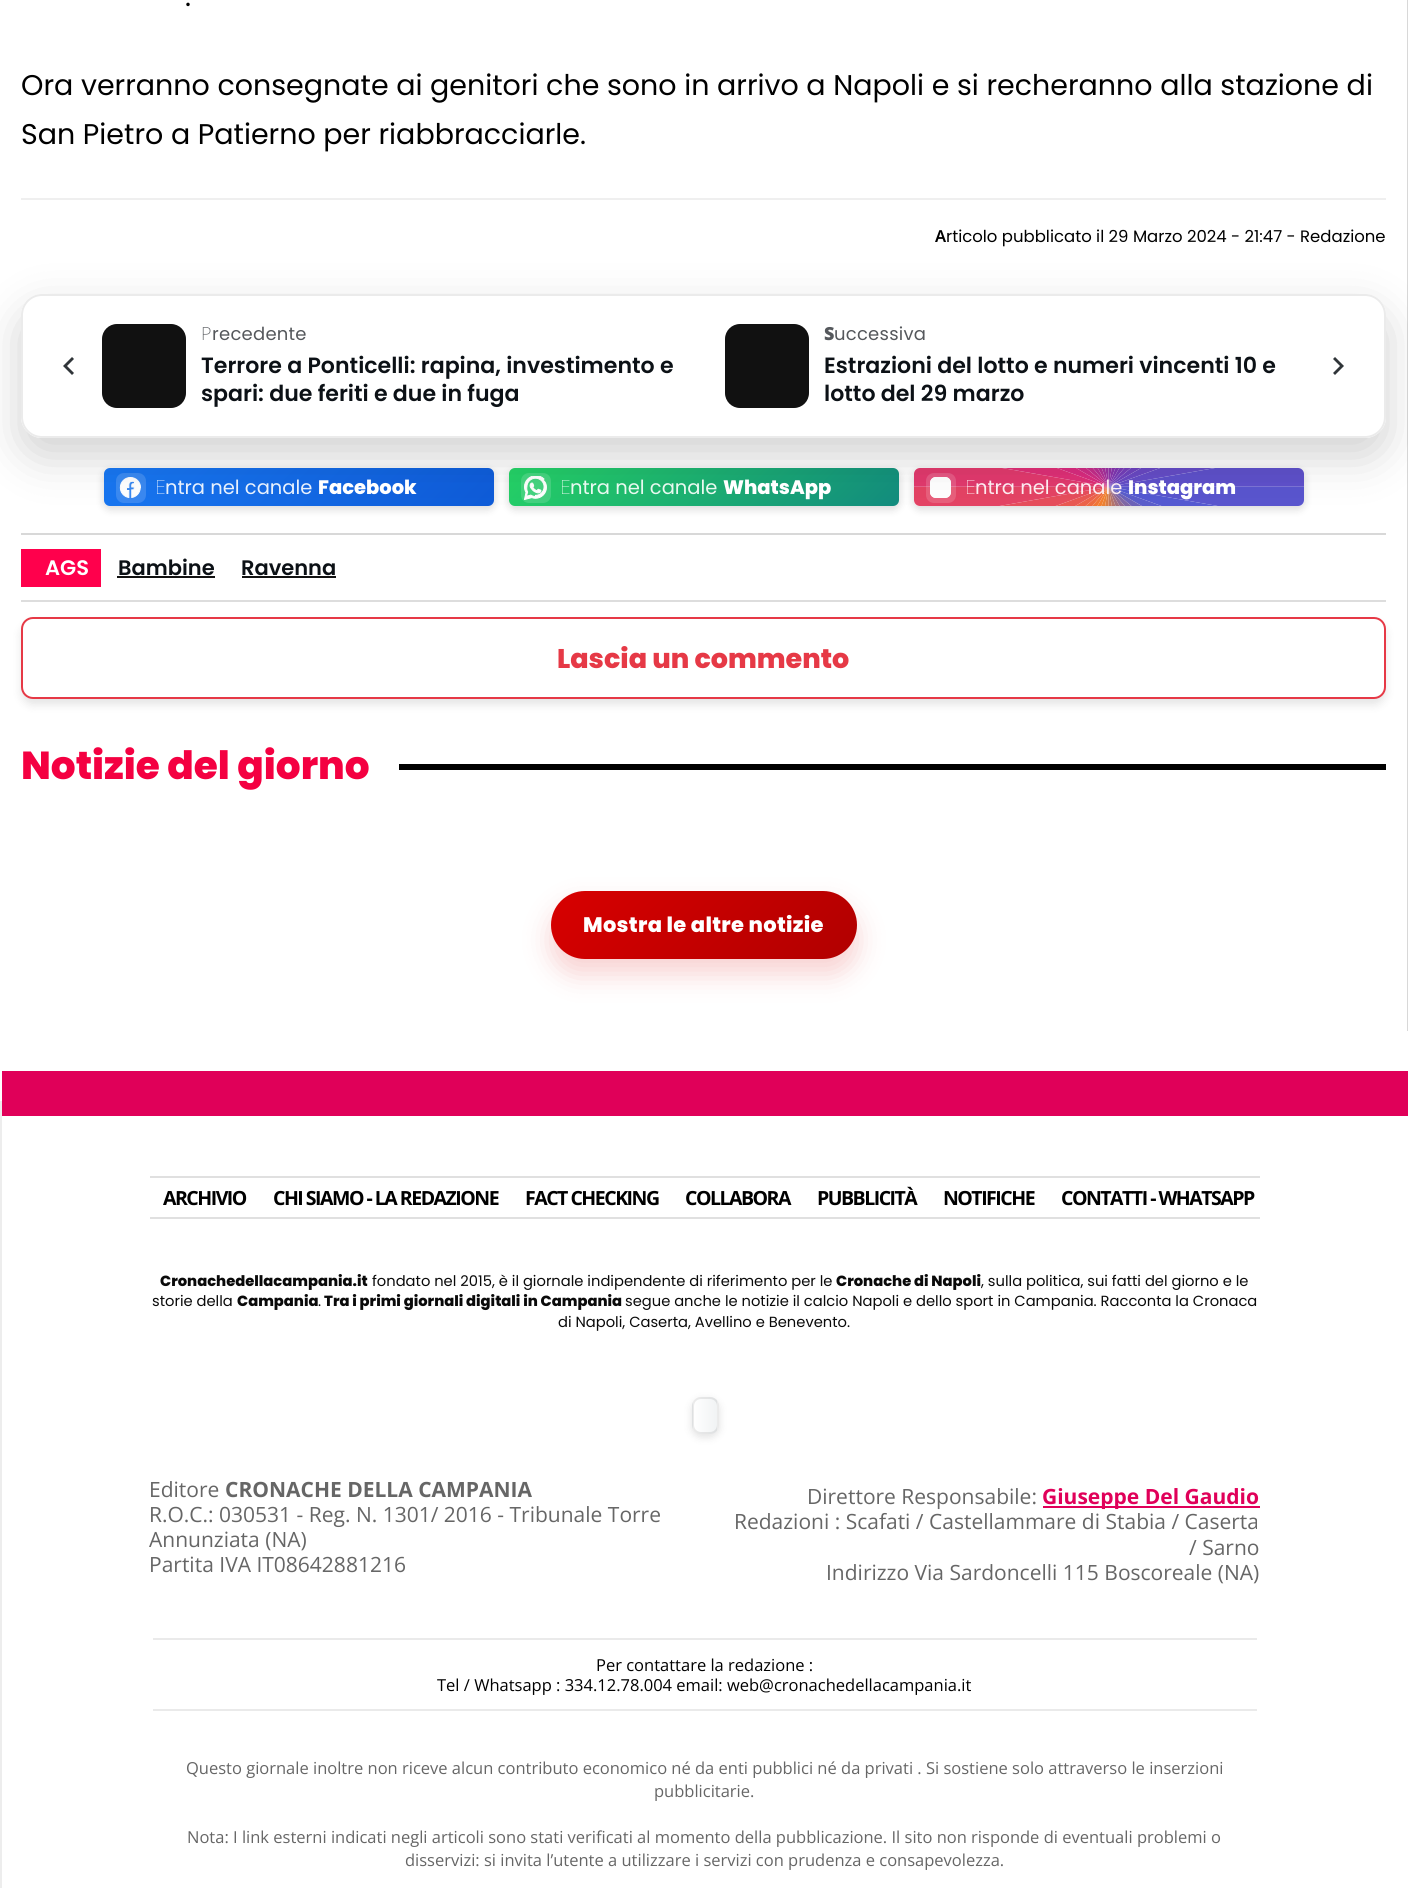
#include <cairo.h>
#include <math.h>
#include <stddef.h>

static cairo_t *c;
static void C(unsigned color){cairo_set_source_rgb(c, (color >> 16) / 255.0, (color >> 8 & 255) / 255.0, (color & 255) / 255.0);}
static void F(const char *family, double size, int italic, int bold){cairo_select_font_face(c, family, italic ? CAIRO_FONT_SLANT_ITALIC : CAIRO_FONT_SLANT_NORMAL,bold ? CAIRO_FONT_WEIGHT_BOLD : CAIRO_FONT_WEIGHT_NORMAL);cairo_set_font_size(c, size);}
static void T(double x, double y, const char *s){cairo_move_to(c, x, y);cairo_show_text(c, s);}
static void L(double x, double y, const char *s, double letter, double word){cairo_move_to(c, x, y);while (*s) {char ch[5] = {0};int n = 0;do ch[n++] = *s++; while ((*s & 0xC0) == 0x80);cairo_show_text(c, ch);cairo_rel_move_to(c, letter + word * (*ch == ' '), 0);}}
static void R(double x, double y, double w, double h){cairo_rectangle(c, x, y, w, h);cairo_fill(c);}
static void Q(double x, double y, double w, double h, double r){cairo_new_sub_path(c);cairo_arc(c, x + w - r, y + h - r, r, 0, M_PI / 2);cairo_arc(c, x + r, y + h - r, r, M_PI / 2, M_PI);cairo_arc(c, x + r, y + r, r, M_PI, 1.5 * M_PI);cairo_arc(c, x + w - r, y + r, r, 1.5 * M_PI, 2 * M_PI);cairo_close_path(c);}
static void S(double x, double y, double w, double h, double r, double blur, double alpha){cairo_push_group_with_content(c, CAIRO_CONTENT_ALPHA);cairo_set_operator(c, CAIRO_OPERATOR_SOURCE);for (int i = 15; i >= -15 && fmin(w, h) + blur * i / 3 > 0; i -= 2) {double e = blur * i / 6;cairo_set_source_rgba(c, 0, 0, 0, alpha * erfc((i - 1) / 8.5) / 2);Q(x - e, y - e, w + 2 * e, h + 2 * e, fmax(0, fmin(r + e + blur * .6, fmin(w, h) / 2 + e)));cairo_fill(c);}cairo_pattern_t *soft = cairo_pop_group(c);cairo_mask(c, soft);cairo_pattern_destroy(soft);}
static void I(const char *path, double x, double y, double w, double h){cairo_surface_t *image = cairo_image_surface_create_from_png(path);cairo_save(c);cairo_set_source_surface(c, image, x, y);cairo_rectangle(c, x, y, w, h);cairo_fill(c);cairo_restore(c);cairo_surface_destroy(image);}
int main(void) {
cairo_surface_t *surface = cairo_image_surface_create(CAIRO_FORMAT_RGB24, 1408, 1888);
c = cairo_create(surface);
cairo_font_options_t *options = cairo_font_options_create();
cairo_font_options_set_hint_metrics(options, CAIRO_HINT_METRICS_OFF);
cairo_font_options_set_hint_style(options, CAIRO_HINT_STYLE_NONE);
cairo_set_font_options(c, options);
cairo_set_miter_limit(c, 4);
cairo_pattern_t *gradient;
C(0xededed);
cairo_paint(c);
C(0xffffff);
R(0,0,1408,1101);
C(0xd8d8d8);
R(1407,0,1,1031);
R(21,533,1365,2);
F("Poppins",28.5,0,0);
C(0x000000);
T(185,6,".");
T(21,95,"Ora verranno consegnate ai genitori che sono in arrivo a Napoli e si recheranno alla stazione di");
T(21,144,"San Pietro a Patierno per riabbracciarle.");
C(0xefefef);
R(21,198,1365,2);
F("Noto Sans SemiBold",16.5,0,0);
C(0x000000);
T(935,242,"A");
F("Poppins",16.5,0,0);
T(946,242,"rticolo pubblicato il 29 Marzo 2024 - 21:47 - Redazione");
C(0x000000);
S(104,471,390,38,6,4.5,.15);
gradient = cairo_pattern_create_linear(192,380,405,594);
cairo_pattern_add_color_stop_rgba(gradient,0,0.094,0.467,0.949,1);
cairo_pattern_add_color_stop_rgba(gradient,1,0.055,0.357,0.847,1);
cairo_set_source(c,gradient);
cairo_pattern_destroy(gradient);
Q(104,468,390,38,6);
cairo_fill(c);
cairo_set_source_rgba(c,1,1,1,0.15);
Q(116,473,30,30,8);
cairo_fill(c);
I("1.png",119,477,22,21);
C(0x000000);
S(509,471,390,38,6,4.5,.15);
gradient = cairo_pattern_create_linear(597,380,810,594);
cairo_pattern_add_color_stop_rgba(gradient,0,0.145,0.827,0.4,1);
cairo_pattern_add_color_stop_rgba(gradient,1,0.071,0.549,0.494,1);
cairo_set_source(c,gradient);
cairo_pattern_destroy(gradient);
Q(509,468,390,38,6);
cairo_fill(c);
cairo_set_source_rgba(c,1,1,1,0.15);
Q(521,473,30,30,8);
cairo_fill(c);
I("2.png",524,476,23,24);
cairo_save(c);
cairo_set_fill_rule(c,CAIRO_FILL_RULE_EVEN_ODD);
cairo_new_path(c);
cairo_move_to(c,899,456);
cairo_line_to(c,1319,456);
cairo_line_to(c,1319,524);
cairo_line_to(c,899,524);
cairo_close_path(c);
cairo_move_to(c,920,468);
cairo_line_to(c,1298,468);
cairo_curve_to(c,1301.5,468,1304,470.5,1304,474);
cairo_line_to(c,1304,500);
cairo_curve_to(c,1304,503.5,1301.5,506,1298,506);
cairo_line_to(c,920,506);
cairo_curve_to(c,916.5,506,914,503.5,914,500);
cairo_line_to(c,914,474);
cairo_curve_to(c,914,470.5,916.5,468,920,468);
cairo_close_path(c);
cairo_clip(c);
C(0x000000);
S(914,471,390,38,6,4.5,.15);
cairo_restore(c);
I("3.png",914,468,390,38);
Q(926,473,30,30,8);
cairo_fill(c);
I("4.png",930,477,21,21);
cairo_save(c);
cairo_set_fill_rule(c,CAIRO_FILL_RULE_EVEN_ODD);
cairo_new_path(c);
cairo_move_to(c,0,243);
cairo_line_to(c,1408,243);
cairo_line_to(c,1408,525);
cairo_line_to(c,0,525);
cairo_close_path(c);
cairo_move_to(c,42,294);
cairo_line_to(c,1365,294);
cairo_curve_to(c,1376.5,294,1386,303.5,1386,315);
cairo_line_to(c,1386,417);
cairo_curve_to(c,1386,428.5,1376.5,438,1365,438);
cairo_line_to(c,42,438);
cairo_curve_to(c,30.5,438,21,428.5,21,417);
cairo_line_to(c,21,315);
cairo_curve_to(c,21,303.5,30.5,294,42,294);
cairo_close_path(c);
cairo_clip(c);
C(0x000000);
S(21,312,1365,144,21,22.5,.18);
cairo_restore(c);
cairo_set_source_rgba(c,1,1,1,0.92);
Q(21,294,1365,144,21);
cairo_fill(c);
Q(22,295,1363,142,20);
cairo_set_source_rgba(c,0,0,0,0.08);
cairo_stroke(c);
C(0x303539);
cairo_new_path(c);
cairo_move_to(c,74,359);
cairo_line_to(c,72,357);
cairo_line_to(c,63,366);
cairo_line_to(c,72,375);
cairo_line_to(c,74,373);
cairo_line_to(c,67,366);
cairo_close_path(c);
cairo_fill(c);
C(0x111111);
Q(102,324,84,84,15);
cairo_fill(c);
F("Noto Sans ExtraLight",18,0,0);
C(0x55585c);
L(201,340,"P",.25,0);
F("Poppins",18,0,0);
L(212,340,"recedente",.25,0);
F("Poppins SemiBold",22.1,0,0);
C(0x0c1116);
T(201,373,"Terrore a Ponticelli: rapina, investimento e");
T(201,401,"spari: due feriti e due in fuga");
C(0x111111);
Q(725,324,84,84,15);
cairo_fill(c);
F("Noto Sans Black",18,0,0);
C(0x55585c);
L(824,340,"S",.25,0);
F("Poppins",18,0,0);
L(834,340,"uccessiva",.25,0);
F("Poppins SemiBold",22.1,0,0);
C(0x0c1116);
T(824,373,"Estrazioni del lotto e numeri vincenti 10 e");
T(824,401,"lotto del 29 marzo");
C(0x303539);
cairo_new_path(c);
cairo_move_to(c,1333,373);
cairo_line_to(c,1335,375);
cairo_line_to(c,1344,366);
cairo_line_to(c,1335,357);
cairo_line_to(c,1333,359);
cairo_line_to(c,1340,366);
cairo_close_path(c);
cairo_fill(c);
F("Noto Sans Thin",19.5,0,0);
C(0xe8f1fd);
T(155,494,"E");
F("Poppins",19.5,0,0);
T(165,494,"ntra nel canale");
F("Poppins ExtraBold",19.5,0,0);
C(0xffffff);
T(318,494,"Facebook");
F("Noto Sans Thin",19.5,0,0);
C(0xe9f9f0);
T(560,494,"E");
F("Poppins",19.5,0,0);
T(570,494,"ntra nel canale");
F("Poppins ExtraBold",19.5,0,0);
C(0xffffff);
T(723,494,"WhatsApp");
F("Noto Sans Thin",19.5,0,0);
C(0xfcecf0);
T(965,494,"E");
F("Poppins",19.5,0,0);
T(975,494,"ntra nel canale");
F("Poppins ExtraBold",19.5,0,0);
C(0xffffff);
T(1128,494,"Instagram");
C(0xdddddd);
R(21,600,1365,2);
C(0xff004c);
R(21,549,80,38);
F("Poppins SemiBold",21,0,0);
C(0xffffff);
T(45,575,"AGS");
C(0x0c1116);
T(118,575,"Bambine");
C(0x111111);
R(117,576,98,2);
C(0x0c1116);
T(241,575,"Ravenna");
C(0x111111);
R(242,576,94,2);
C(0x000000);
S(21,623,1365,82,12,4.5,.1);
C(0xffffff);
Q(22,618,1363,80,11);
cairo_fill_preserve(c);
C(0xe63946);
cairo_stroke(c);
F("Poppins ExtraBold",27,0,0);
T(557,668,"Lascia un commento");
F("Poppins ExtraBold",39,0,0);
C(0xf40041);
T(21,779,"Notizie del giorno");
C(0x000000);
R(399,764,987,6);
C(0xd80000);
S(551,906,306,68,34,13.5,.18);
gradient = cairo_pattern_create_linear(610,831,797,1018);
cairo_pattern_add_color_stop_rgba(gradient,0,0.847,0,0,1);
cairo_pattern_add_color_stop_rgba(gradient,1,0.694,0,0,1);
cairo_set_source(c,gradient);
cairo_pattern_destroy(gradient);
Q(551,891,306,68,34);
cairo_fill(c);
F("Poppins ExtraBold",21,0,0);
C(0xffffff);
L(583,932,"Mostra le altre notizie",.3,0);
C(0xe00059);
R(2,1071,1406,45);
C(0xffffff);
R(2,1116,1406,772);
C(0xe0e0e0);
R(150,1176,1110,2);
R(150,1217,1110,2);
F("Open Sans",19.5,0,1);
C(0x000000);
L(163,1205,"ARCHIVIO",-1.5,0);
L(273,1205,"CHI SIAMO - LA REDAZIONE",-1.5,0);
L(525,1205,"FACT CHECKING",-1.5,0);
L(685,1205,"COLLABORA",-1.5,0);
L(817,1205,"PUBBLICITÀ",-1.5,0);
L(943,1205,"NOTIFICHE",-1.5,0);
L(1061,1205,"CONTATTI - WHATSAPP",-1.5,0);
F("Poppins ExtraBold",14.7,0,0);
C(0x0a0a0a);
T(160,1286,"Cronachedellacampania.it");
F("Poppins",14.7,0,0);
T(372,1286,"fondato nel 2015, è il giornale indipendente di riferimento per le");
F("Poppins ExtraBold",14.7,0,0);
T(836,1286,"Cronache di Napoli");
F("Poppins",14.7,0,0);
T(981,1286,", sulla politica, sui fatti del giorno e le");
T(152,1306,"storie della");
F("Poppins ExtraBold",14.7,0,0);
T(237,1306,"Campania");
F("Poppins",14.7,0,0);
T(318,1306,".");
F("Poppins ExtraBold",14.7,0,0);
T(324,1306,"Tra i primi giornali digitali in Campania");
F("Poppins",14.7,0,0);
T(625,1306,"segue anche le notizie il calcio Napoli e dello sport in Campania. Racconta la Cronaca");
T(558,1327,"di Napoli, Caserta, Avellino e Benevento.");
C(0x000000);
S(692,1400,27,37,9,4.5,.12);
cairo_save(c);
Q(692,1397,27,37,9);
cairo_clip(c);
gradient = cairo_pattern_create_linear(669,1415,693,1415);
cairo_pattern_add_color_stop_rgba(gradient,0,1,1,1,1);
cairo_pattern_add_color_stop_rgba(gradient,1,0.945,0.953,0.957,1);
cairo_set_source(c,gradient);
cairo_pattern_destroy(gradient);
R(692,1397,1,37);
gradient = cairo_pattern_create_linear(693,1415,717,1415);
cairo_pattern_add_color_stop_rgba(gradient,0,1,1,1,1);
cairo_pattern_add_color_stop_rgba(gradient,1,0.945,0.953,0.957,1);
cairo_set_source(c,gradient);
cairo_pattern_destroy(gradient);
R(693,1397,24,37);
gradient = cairo_pattern_create_linear(717,1415,741,1415);
cairo_pattern_add_color_stop_rgba(gradient,0,1,1,1,1);
cairo_pattern_add_color_stop_rgba(gradient,1,0.945,0.953,0.957,1);
cairo_set_source(c,gradient);
cairo_pattern_destroy(gradient);
R(717,1397,2,37);
cairo_restore(c);
Q(693,1398,25,35,8);
cairo_set_source_rgba(c,0,0,0,0.08);
cairo_stroke(c);
F("Open Sans",21,0,0);
C(0x666666);
T(149,1497,"Editore");
F("Open Sans",21,0,1);
T(225,1497,"CRONACHE DELLA CAMPANIA");
F("Open Sans",21,0,0);
T(149,1522,"R.O.C.: 030531 - Reg. N. 1301/ 2016 - Tribunale Torre");
T(149,1547,"Annunziata (NA)");
T(149,1572,"Partita IVA IT08642881216");
T(807,1504,"Direttore Responsabile:");
C(0xe00059);
R(1043,1506,217,2);
F("Open Sans",21,0,1);
T(1042,1504,"Giuseppe Del Gaudio");
F("Open Sans",21,0,0);
C(0x666666);
T(734,1529,"Redazioni : Scafati / Castellammare di Stabia / Caserta");
T(1189,1555,"/ Sarno");
T(826,1580,"Indirizzo Via Sardoncelli 115 Boscoreale (NA)");
C(0xeaeaea);
R(153,1638,1104,2);
R(153,1709,1104,2);
F("Open Sans",16.5,0,0);
C(0x000000);
T(596,1671,"Per contattare la redazione :");
T(437,1691,"Tel / Whatsapp : 334.12.78.004 email: web@cronachedellacampania.it");
C(0x666666);
T(186,1774,"Questo giornale inoltre non riceve alcun contributo economico né da enti pubblici né da privati . Si sostiene solo attraverso le inserzioni");
T(654,1797,"pubblicitarie.");
T(187,1843,"Nota: I link esterni indicati negli articoli sono stati verificati al momento della pubblicazione. Il sito non risponde di eventuali problemi o");
T(405,1866,"disservizi: si invita l’utente a utilizzare i servizi con prudenza e consapevolezza.");
cairo_surface_write_to_png(surface, "o.png");
cairo_font_options_destroy(options);
cairo_destroy(c);
cairo_surface_destroy(surface);
return 0;
}
